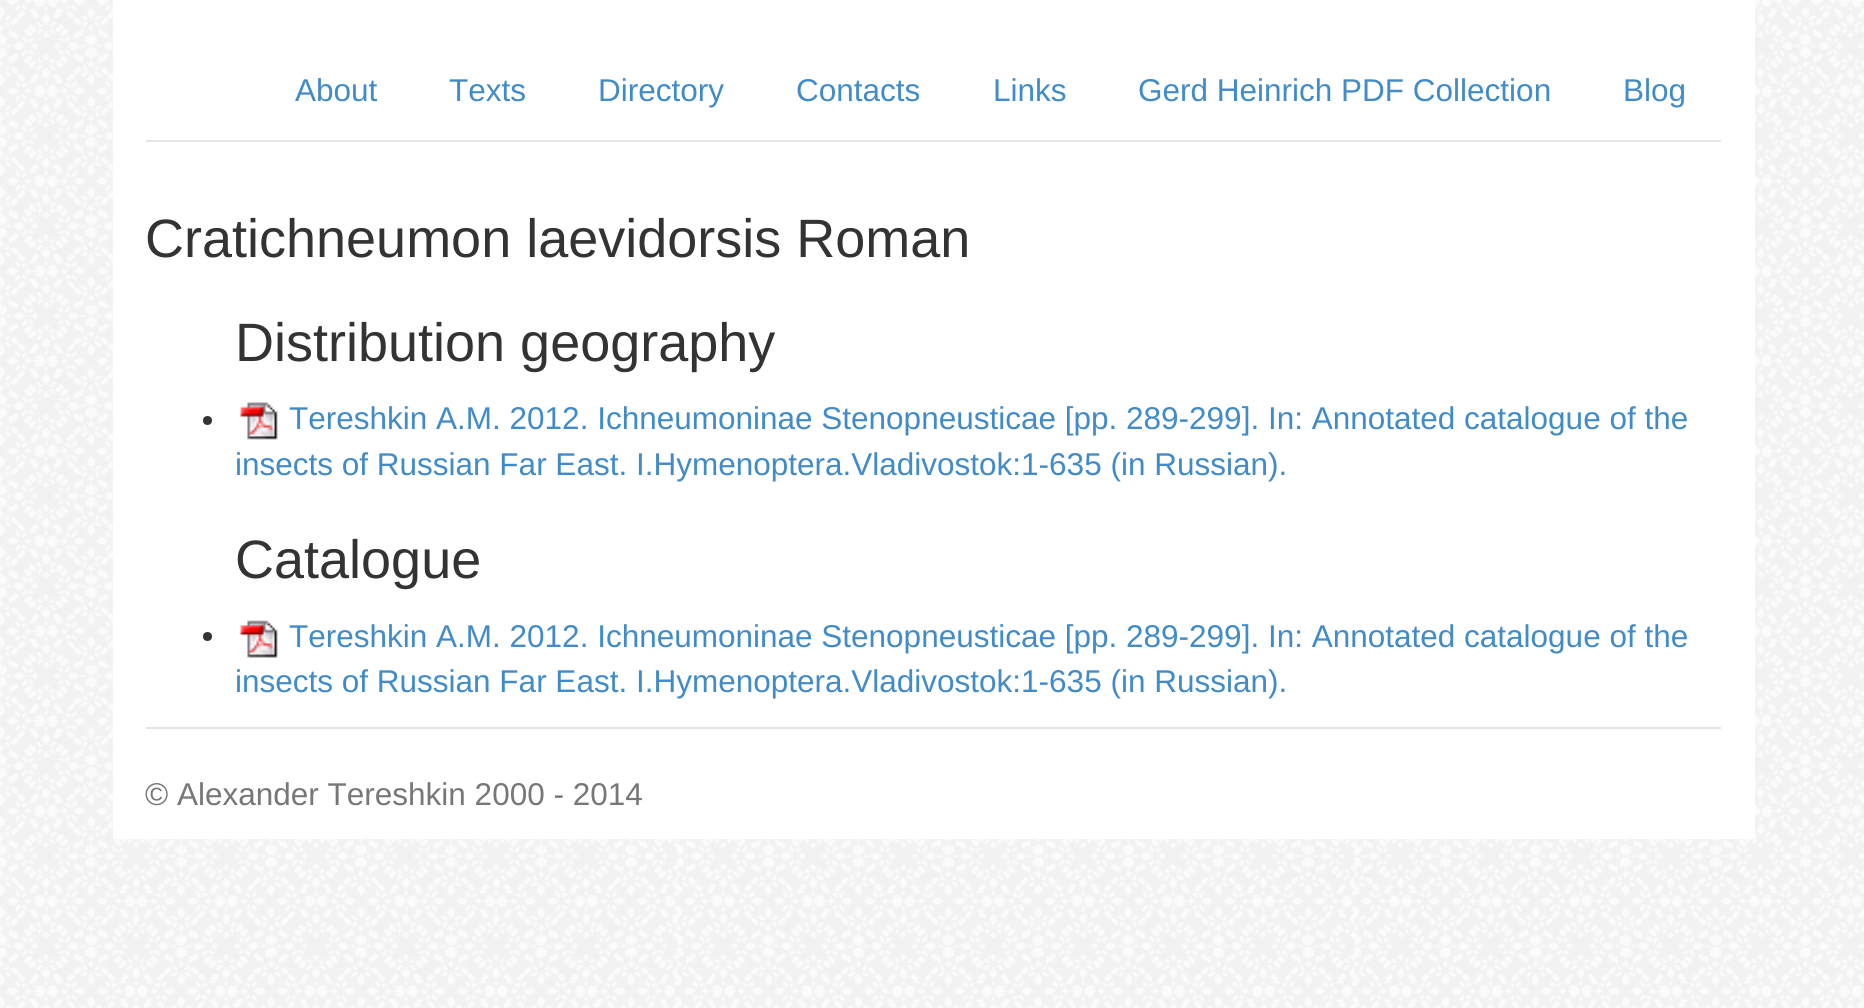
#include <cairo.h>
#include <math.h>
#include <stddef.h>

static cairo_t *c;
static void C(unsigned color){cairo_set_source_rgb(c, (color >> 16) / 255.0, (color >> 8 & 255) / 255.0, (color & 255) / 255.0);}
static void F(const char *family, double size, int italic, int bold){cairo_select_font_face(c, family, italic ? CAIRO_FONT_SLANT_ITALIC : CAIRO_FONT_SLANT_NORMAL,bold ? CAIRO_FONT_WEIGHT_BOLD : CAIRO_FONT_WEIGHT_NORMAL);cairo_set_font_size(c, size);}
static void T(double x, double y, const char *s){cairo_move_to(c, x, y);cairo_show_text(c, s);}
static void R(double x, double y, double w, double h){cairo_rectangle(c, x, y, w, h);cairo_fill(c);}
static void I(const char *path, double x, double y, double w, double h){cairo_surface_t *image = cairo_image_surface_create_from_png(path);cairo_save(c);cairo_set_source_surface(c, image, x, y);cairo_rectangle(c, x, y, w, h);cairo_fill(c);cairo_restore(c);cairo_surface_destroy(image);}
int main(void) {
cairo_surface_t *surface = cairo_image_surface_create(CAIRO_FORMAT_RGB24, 1864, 1008);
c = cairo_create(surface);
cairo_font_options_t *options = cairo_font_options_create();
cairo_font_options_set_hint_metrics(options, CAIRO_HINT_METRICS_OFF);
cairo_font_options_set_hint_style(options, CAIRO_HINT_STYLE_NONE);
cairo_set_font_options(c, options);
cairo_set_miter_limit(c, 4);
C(0xffffff);
cairo_paint(c);
I("1.png",0,0,1864,1008);
C(0xffffff);
R(113,0,1642,839);
C(0xe5e5e5);
R(146,140,1575,2);
F("Liberation Sans",31.5,0,0);
C(0x428bca);
T(295,101,"About");
T(449,101,"Texts");
T(598,101,"Directory");
T(796,101,"Contacts");
T(993,101,"Links");
T(1138,101,"Gerd Heinrich PDF Collection");
T(1623,101,"Blog");
F("Liberation Sans",54,0,0);
C(0x333333);
T(145,257,"Cratichneumon laevidorsis Roman");
T(235,361,"Distribution geography");
cairo_new_path(c);
cairo_arc(c,207.5,420.5,4.5,0,2 * M_PI);
cairo_fill(c);
I("2.png",240,402,38,38);
F("Liberation Sans",31.5,0,0);
C(0x428bca);
T(289,429,"Tereshkin A.M. 2012. Ichneumoninae Stenopneusticae [pp. 289-299]. In: Annotated catalogue of the");
T(235,475,"insects of Russian Far East. I.Hymenoptera.Vladivostok:1-635 (in Russian).");
F("Liberation Sans",54,0,0);
C(0x333333);
T(235,578,"Catalogue");
cairo_new_path(c);
cairo_arc(c,207.5,636.5,4.5,0,2 * M_PI);
cairo_fill(c);
I("3.png",240,620,38,38);
F("Liberation Sans",31.5,0,0);
C(0x428bca);
T(289,647,"Tereshkin A.M. 2012. Ichneumoninae Stenopneusticae [pp. 289-299]. In: Annotated catalogue of the");
T(235,692,"insects of Russian Far East. I.Hymenoptera.Vladivostok:1-635 (in Russian).");
C(0xe5e5e5);
R(146,727,1575,2);
C(0x777777);
T(145,805,"© Alexander Tereshkin 2000 - 2014");
cairo_surface_write_to_png(surface, "o.png");
cairo_font_options_destroy(options);
cairo_destroy(c);
cairo_surface_destroy(surface);
return 0;
}
